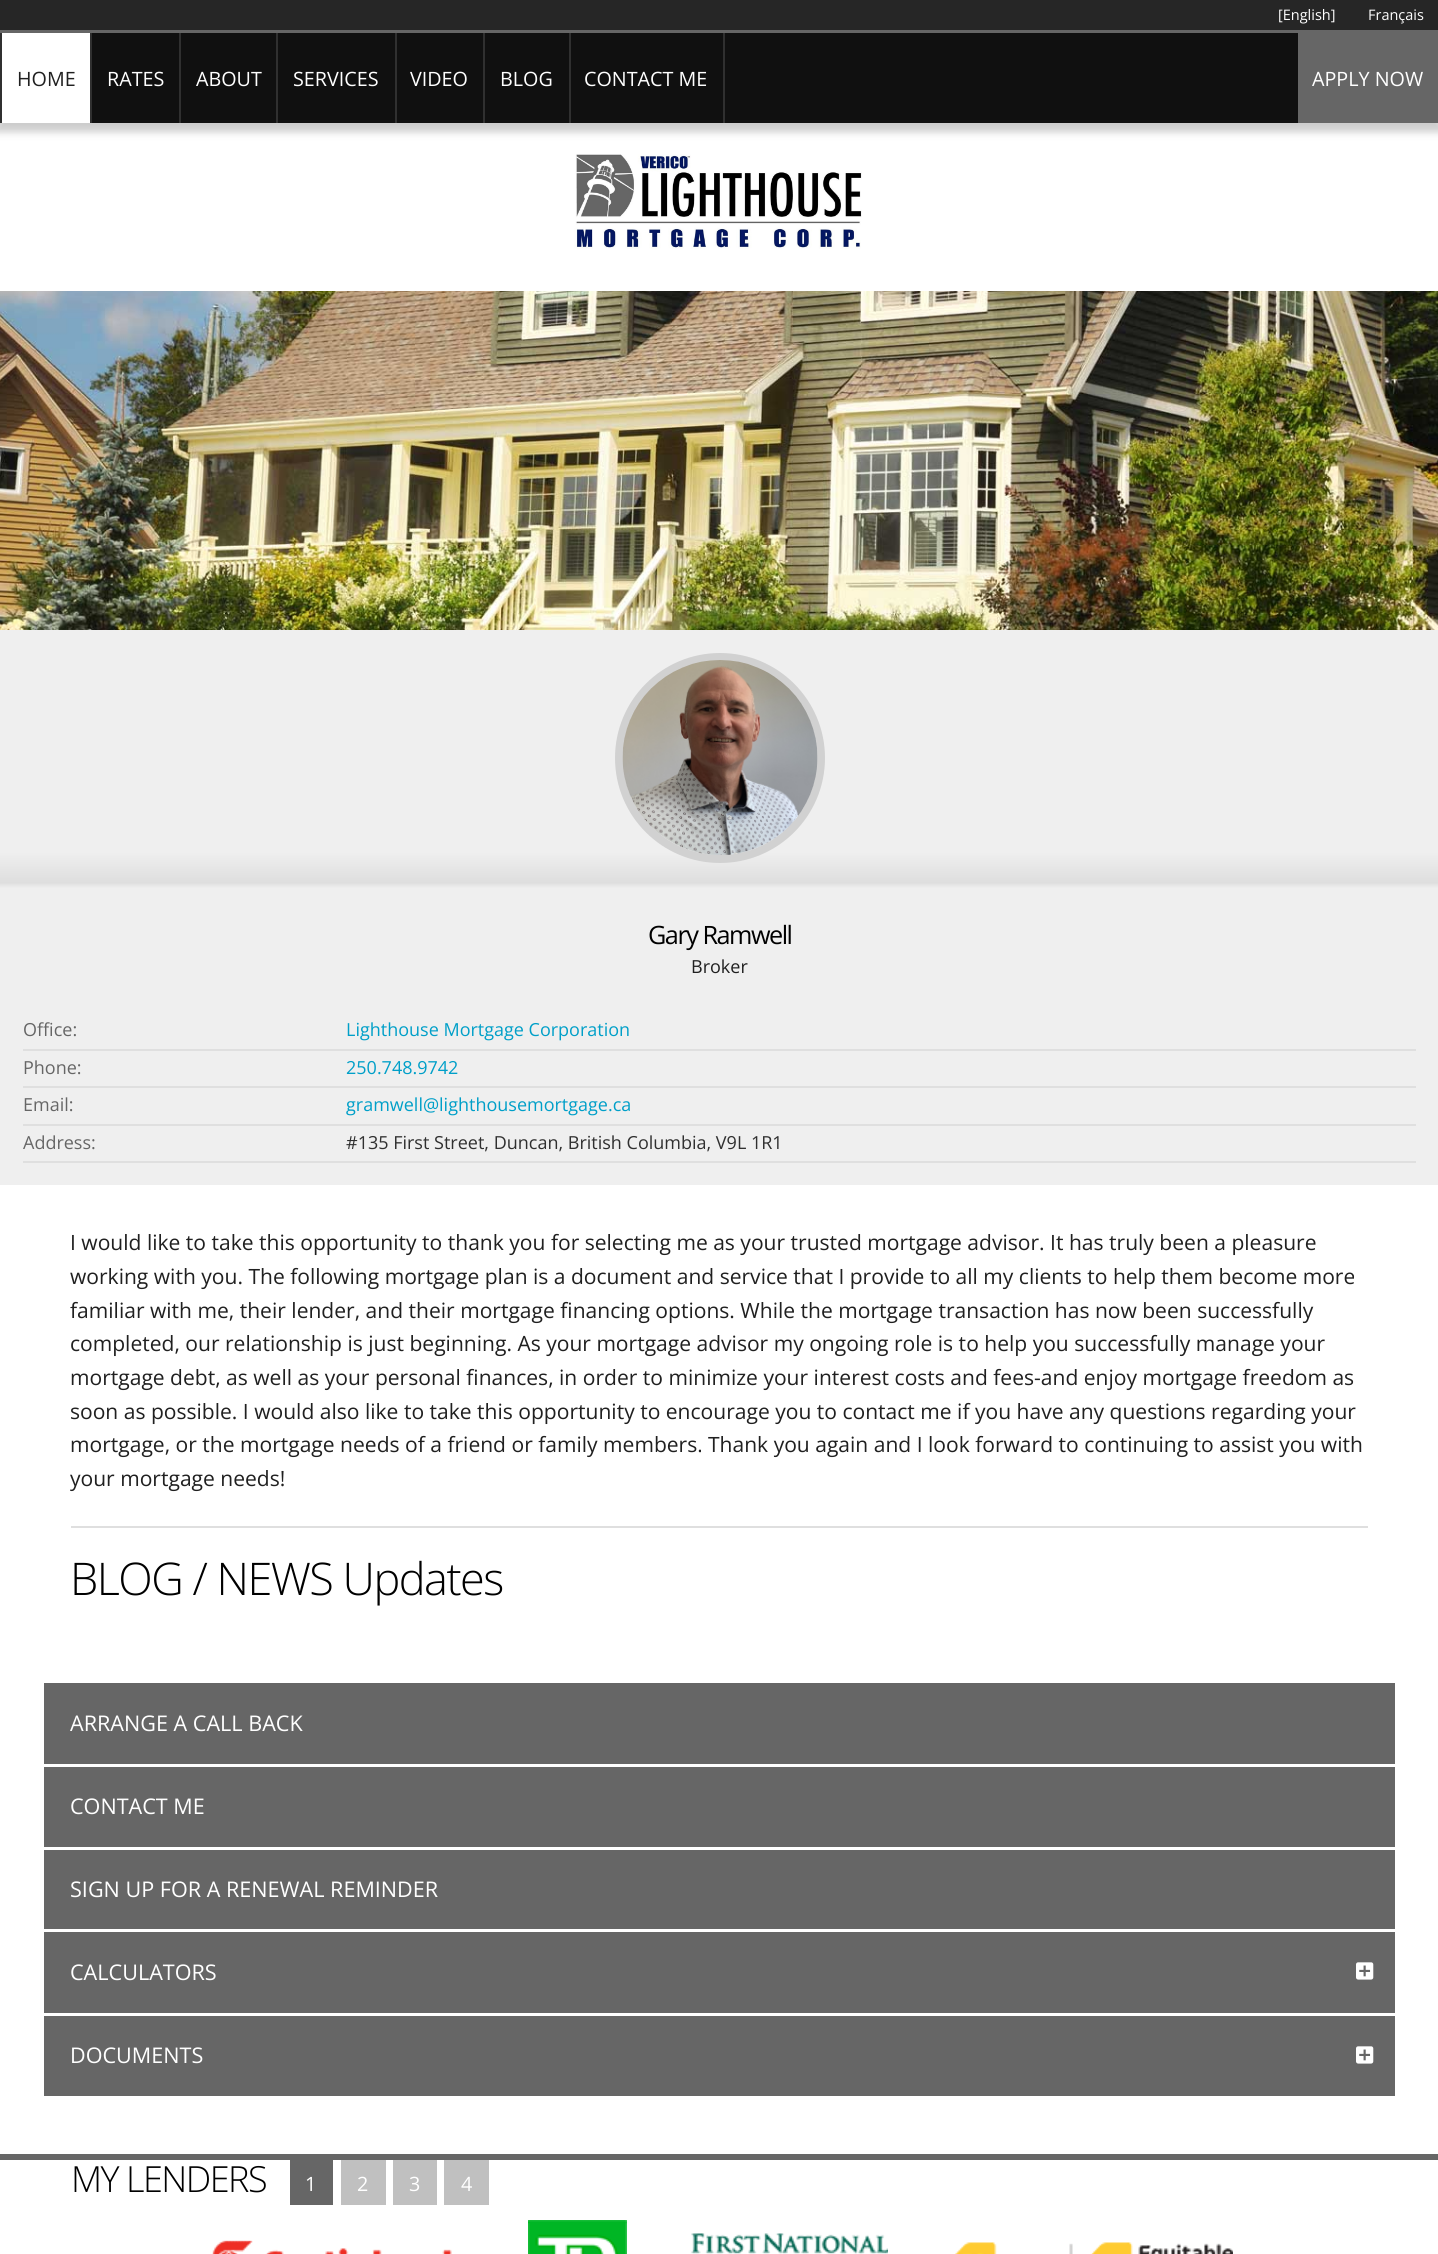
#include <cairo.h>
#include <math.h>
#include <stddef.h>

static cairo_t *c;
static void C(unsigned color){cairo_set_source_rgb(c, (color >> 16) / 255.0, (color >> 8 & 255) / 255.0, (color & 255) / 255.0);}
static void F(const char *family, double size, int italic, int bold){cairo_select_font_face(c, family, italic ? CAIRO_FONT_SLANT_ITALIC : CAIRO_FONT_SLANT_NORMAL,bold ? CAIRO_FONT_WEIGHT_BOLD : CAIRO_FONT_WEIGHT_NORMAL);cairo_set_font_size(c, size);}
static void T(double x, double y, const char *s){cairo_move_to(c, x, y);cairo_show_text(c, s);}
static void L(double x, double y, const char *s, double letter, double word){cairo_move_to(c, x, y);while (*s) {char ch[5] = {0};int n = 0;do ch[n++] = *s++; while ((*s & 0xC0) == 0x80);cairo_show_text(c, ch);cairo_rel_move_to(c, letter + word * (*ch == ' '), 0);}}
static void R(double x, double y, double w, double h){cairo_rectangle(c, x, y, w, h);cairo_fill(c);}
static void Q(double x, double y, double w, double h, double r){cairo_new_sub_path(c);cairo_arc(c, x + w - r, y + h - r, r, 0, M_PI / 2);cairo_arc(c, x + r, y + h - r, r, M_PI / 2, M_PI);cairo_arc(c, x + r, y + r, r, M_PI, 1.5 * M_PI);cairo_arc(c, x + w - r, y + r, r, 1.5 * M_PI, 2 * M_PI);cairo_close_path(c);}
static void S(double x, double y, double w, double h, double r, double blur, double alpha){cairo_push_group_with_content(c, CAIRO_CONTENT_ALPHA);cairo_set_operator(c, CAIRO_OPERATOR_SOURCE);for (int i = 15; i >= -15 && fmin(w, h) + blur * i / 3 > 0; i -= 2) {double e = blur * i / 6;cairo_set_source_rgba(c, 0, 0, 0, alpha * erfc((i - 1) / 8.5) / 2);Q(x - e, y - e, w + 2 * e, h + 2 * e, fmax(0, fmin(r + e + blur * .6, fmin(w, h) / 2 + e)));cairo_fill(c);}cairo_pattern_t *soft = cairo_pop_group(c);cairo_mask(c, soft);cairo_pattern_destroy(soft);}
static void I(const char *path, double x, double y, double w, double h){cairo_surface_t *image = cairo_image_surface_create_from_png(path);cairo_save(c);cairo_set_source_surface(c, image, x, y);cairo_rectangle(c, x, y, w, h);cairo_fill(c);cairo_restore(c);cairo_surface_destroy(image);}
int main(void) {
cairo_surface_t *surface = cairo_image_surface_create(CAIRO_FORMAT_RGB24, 1438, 2254);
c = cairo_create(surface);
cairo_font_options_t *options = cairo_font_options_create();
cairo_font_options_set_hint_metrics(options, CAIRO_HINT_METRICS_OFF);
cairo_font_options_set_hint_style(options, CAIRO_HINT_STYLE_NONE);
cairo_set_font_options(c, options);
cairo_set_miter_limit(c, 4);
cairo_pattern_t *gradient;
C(0xffffff);
cairo_paint(c);
C(0x000000);
S(-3,33,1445,99,0,4,.2);
C(0x262626);
R(0,0,1438,30);
F("Open Sans",14.5,0,0);
C(0xffffff);
T(1278,20,"[English]");
T(1368,20,"Français");
C(0x101010);
R(92,33,1206,90);
C(0x666666);
R(0,30,1438,3);
C(0xffffff);
R(2,33,88,90);
C(0x303030);
R(0,33,2,90);
F("Open Sans",19.75,0,0);
C(0x202020);
T(17,86,"HOME");
C(0x303030);
R(90,33,2,90);
C(0xffffff);
T(107,86,"RATES");
C(0x303030);
R(179,33,2,90);
C(0xffffff);
T(196,86,"ABOUT");
C(0x303030);
R(276,33,2,90);
C(0xffffff);
T(293,86,"SERVICES");
C(0x303030);
R(395,33,2,90);
C(0xffffff);
T(410,86,"VIDEO");
C(0x303030);
R(483,33,2,90);
C(0xffffff);
T(500,86,"BLOG");
C(0x303030);
R(723,33,2,90);
R(569,33,2,90);
C(0xffffff);
T(584,86,"CONTACT ME");
C(0x666666);
R(1298,33,140,90);
C(0xffffff);
T(1312,86,"APPLY NOW");
I("1.png",574,154,288,95);
I("2.png",0,291,1438,339);
C(0xefefef);
R(0,888,1438,297);
gradient = cairo_pattern_create_linear(719,630,719,888);
cairo_pattern_add_color_stop_rgba(gradient,.86,0.937,0.937,0.937,1);
cairo_pattern_add_color_stop_rgba(gradient,.98,0.871,0.871,0.871,1);
cairo_pattern_add_color_stop_rgba(gradient,1,0.937,0.937,0.937,1);
cairo_set_source(c,gradient);
cairo_pattern_destroy(gradient);
R(0,630,1438,258);
cairo_arc(c,720,758,101,0,2 * M_PI);
C(0xd1d1d1);
cairo_set_line_width(c,8);
cairo_stroke(c);
I("3.png",622,660,196,195);
F("Open Sans",25.25,0,0);
C(0x000000);
L(648,944,"Gary Ramwell",-1.5,0);
F("Open Sans",18,0,0);
C(0x202020);
T(691,973,"Broker");
C(0xdfdfdf);
R(23,1049,1393,2);
C(0x666666);
T(23,1036,"Office:");
C(0x009fc8);
T(346,1036,"Lighthouse Mortgage Corporation");
C(0xdfdfdf);
R(23,1086,1393,2);
C(0x666666);
T(23,1074,"Phone:");
C(0x009fc8);
T(346,1074,"250.748.9742");
C(0xdfdfdf);
R(23,1124,1393,2);
C(0x666666);
T(23,1111,"Email:");
C(0x009fc8);
T(346,1111,"gramwell@lighthousemortgage.ca");
C(0xdfdfdf);
R(23,1161,1393,2);
C(0x666666);
T(23,1149,"Address:");
C(0x303030);
T(346,1149,"#135 First Street, Duncan, British Columbia, V9L 1R1");
F("Open Sans",21.05,0,0);
C(0x202020);
T(70,1250,"I would like to take this opportunity to thank you for selecting me as your trusted mortgage advisor. It has truly been a pleasure");
T(70,1284,"working with you. The following mortgage plan is a document and service that I provide to all my clients to help them become more");
T(70,1318,"familiar with me, their lender, and their mortgage financing options. While the mortgage transaction has now been successfully");
T(70,1351,"completed, our relationship is just beginning. As your mortgage advisor my ongoing role is to help you successfully manage your");
T(70,1385,"mortgage debt, as well as your personal finances, in order to minimize your interest costs and fees-and enjoy mortgage freedom as");
T(70,1419,"soon as possible. I would also like to take this opportunity to encourage you to contact me if you have any questions regarding your");
T(70,1452,"mortgage, or the mortgage needs of a friend or family members.");
T(708,1452,"Thank you again and I look forward to continuing to assist you with");
T(70,1486,"your mortgage needs!");
C(0xdfdfdf);
R(71,1526,1297,2);
F("Open Sans Light",45,0,0);
C(0x000000);
L(70,1595,"BLOG / NEWS Updates",-1.5,0);
C(0x666666);
R(44,1683,1351,81);
F("Open Sans",21.6,0,0);
C(0xffffff);
T(70,1731,"ARRANGE A CALL BACK");
C(0x666666);
R(44,1767,1351,80);
C(0xffffff);
T(70,1814,"CONTACT ME");
C(0x666666);
R(44,1850,1351,79);
C(0xffffff);
T(70,1897,"SIGN UP FOR A RENEWAL REMINDER");
C(0x666666);
R(44,1932,1351,81);
C(0xffffff);
T(70,1980,"CALCULATORS");
I("4.png",1356,1962,18,18);
C(0x666666);
R(44,2016,1351,80);
C(0xffffff);
T(70,2063,"DOCUMENTS");
I("4.png",1356,2046,18,18);
C(0x666666);
R(0,2154,1438,6);
F("Open Sans Light",36,0,0);
C(0x000000);
L(71,2192,"MY LENDERS",-1.5,0);
C(0x666666);
R(290,2160,43,45);
F("Open Sans",19.75,0,0);
C(0xffffff);
T(305,2191,"1");
C(0xc0c0c0);
R(341,2160,45,45);
C(0xffffff);
T(357,2191,"2");
C(0xc0c0c0);
R(393,2160,44,45);
C(0xffffff);
T(409,2191,"3");
C(0xc0c0c0);
R(444,2160,45,45);
C(0xffffff);
T(461,2191,"4");
I("5.png",212,2240,240,14);
I("6.png",528,2220,99,34);
I("7.png",691,2233,197,21);
I("8.png",955,2242,278,12);
cairo_surface_write_to_png(surface, "o.png");
cairo_font_options_destroy(options);
cairo_destroy(c);
cairo_surface_destroy(surface);
return 0;
}
